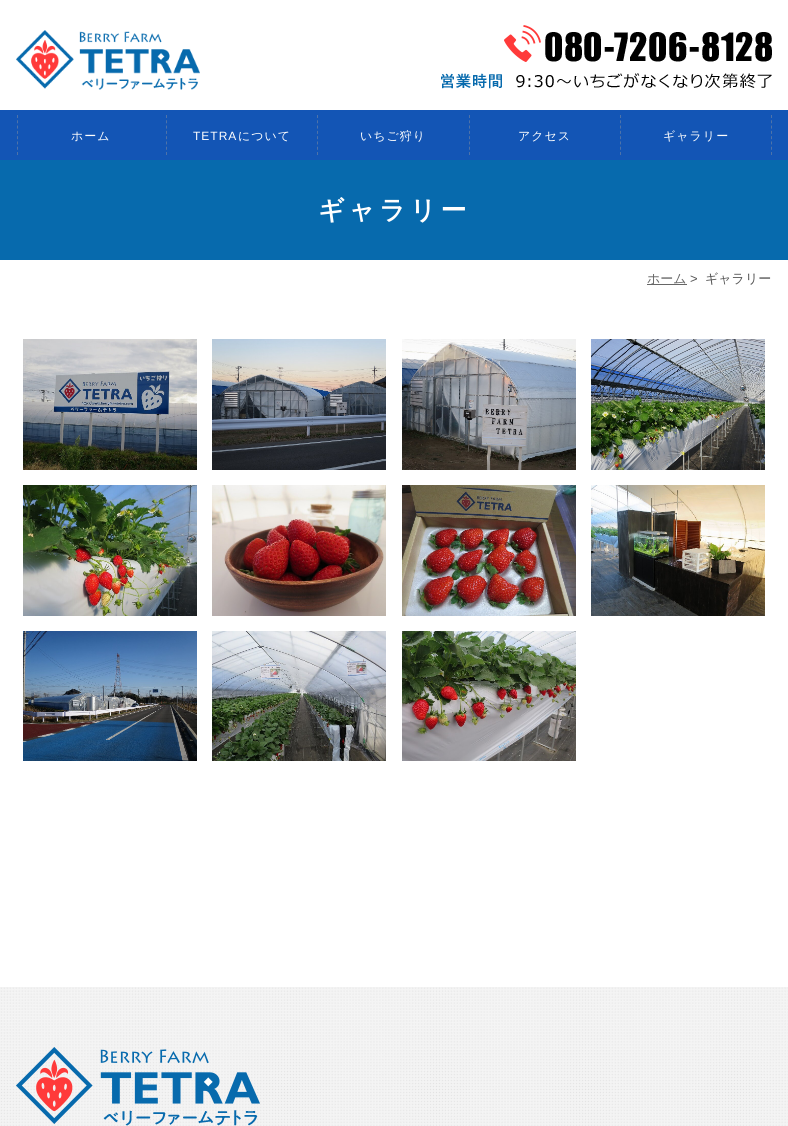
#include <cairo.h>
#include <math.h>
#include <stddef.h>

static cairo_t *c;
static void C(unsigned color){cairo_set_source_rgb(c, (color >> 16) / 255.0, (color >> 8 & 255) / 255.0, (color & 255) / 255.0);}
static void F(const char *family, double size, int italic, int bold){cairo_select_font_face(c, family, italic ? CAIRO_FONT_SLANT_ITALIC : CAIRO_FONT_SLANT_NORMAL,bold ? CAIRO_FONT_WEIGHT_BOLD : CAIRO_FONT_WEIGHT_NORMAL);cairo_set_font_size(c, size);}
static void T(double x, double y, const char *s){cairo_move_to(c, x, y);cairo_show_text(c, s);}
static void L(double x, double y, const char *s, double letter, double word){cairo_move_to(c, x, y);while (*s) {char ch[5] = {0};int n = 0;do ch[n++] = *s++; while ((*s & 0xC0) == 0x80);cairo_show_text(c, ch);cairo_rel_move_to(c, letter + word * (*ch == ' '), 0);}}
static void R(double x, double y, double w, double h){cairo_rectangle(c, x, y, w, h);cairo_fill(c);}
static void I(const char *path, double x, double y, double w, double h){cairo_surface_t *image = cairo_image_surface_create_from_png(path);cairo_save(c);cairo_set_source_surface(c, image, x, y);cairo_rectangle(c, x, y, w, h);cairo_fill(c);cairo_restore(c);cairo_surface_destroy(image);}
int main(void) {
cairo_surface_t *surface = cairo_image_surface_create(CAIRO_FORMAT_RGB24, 788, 1126);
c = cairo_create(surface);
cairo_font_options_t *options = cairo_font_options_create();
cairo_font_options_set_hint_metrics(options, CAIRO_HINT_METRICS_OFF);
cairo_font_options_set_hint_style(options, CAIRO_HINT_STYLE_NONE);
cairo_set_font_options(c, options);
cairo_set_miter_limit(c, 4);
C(0xffffff);
cairo_paint(c);
I("1.png",16,30,184,60);
I("2.png",441,25,331,64);
C(0x1355b5);
R(0,110,788,50);
cairo_new_path(c);
cairo_move_to(c,17.5,115);
cairo_line_to(c,17.5,155);
C(0x4e73a9);
cairo_set_line_width(c,1);
cairo_set_dash(c,(double[]){3,2.29},2,0);
cairo_stroke(c);
F("WenQuanYi Zen Hei Medium",12,0,0);
C(0xffffff);
L(71,140,"ホーム",1,0);
cairo_new_path(c);
cairo_move_to(c,166.5,115);
cairo_line_to(c,166.5,155);
C(0x4e73a9);
cairo_stroke(c);
F("Liberation Sans",12,0,0);
C(0xffffff);
L(193,140,"TETRA",1,0);
F("WenQuanYi Zen Hei Medium",12,0,0);
L(238,140,"について",1,0);
cairo_new_path(c);
cairo_move_to(c,317.5,115);
cairo_line_to(c,317.5,155);
cairo_move_to(c,317.5,115);
cairo_line_to(c,317.5,155);
C(0x4e73a9);
cairo_stroke(c);
C(0xffffff);
L(360,140,"いちご狩り",1,0);
cairo_new_path(c);
cairo_move_to(c,469.5,115);
cairo_line_to(c,469.5,155);
cairo_move_to(c,469.5,115);
cairo_line_to(c,469.5,155);
C(0x4e73a9);
cairo_stroke(c);
C(0xffffff);
L(518,140,"アクセス",1,0);
cairo_new_path(c);
cairo_move_to(c,620.5,115);
cairo_line_to(c,620.5,155);
cairo_move_to(c,620.5,115);
cairo_line_to(c,620.5,155);
C(0x4e73a9);
cairo_stroke(c);
C(0xffffff);
L(663,140,"ギャラリー",1,0);
cairo_new_path(c);
cairo_move_to(c,771.5,115);
cairo_line_to(c,771.5,155);
cairo_move_to(c,771.5,115);
cairo_line_to(c,771.5,155);
C(0x4e73a9);
cairo_stroke(c);
C(0x076aad);
R(0,160,788,100);
F("WenQuanYi Zen Hei",26,0,1);
C(0xffffff);
L(318,219,"ギャラリー",4,0);
C(0x666666);
R(647,284,40,1);
F("WenQuanYi Zen Hei Medium",13,0,0);
T(647,283,"ホーム");
F("Liberation Sans",13,0,0);
C(0x555555);
T(690,283,">");
F("WenQuanYi Zen Hei Medium",13,0,0);
T(705,283,"ギャラリー");
I("3.png",23,339,174,131);
I("4.png",212,339,174,131);
I("5.png",402,339,174,131);
I("6.png",591,339,174,131);
I("7.png",23,485,174,131);
I("8.png",212,485,174,131);
I("9.png",402,485,174,131);
I("10.png",591,485,174,131);
I("11.png",23,631,174,130);
I("12.png",212,631,174,130);
I("13.png",402,631,174,130);
I("14.png",0,987,788,139);
I("15.png",16,1047,244,79);
cairo_surface_write_to_png(surface, "o.png");
cairo_font_options_destroy(options);
cairo_destroy(c);
cairo_surface_destroy(surface);
return 0;
}
